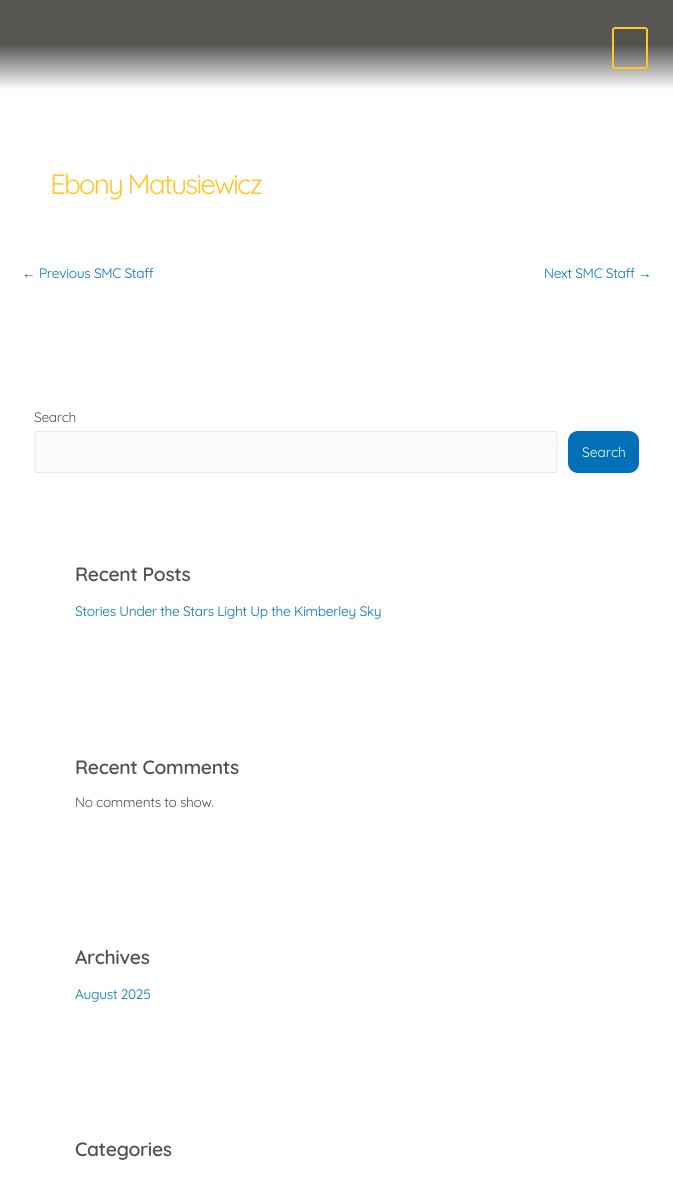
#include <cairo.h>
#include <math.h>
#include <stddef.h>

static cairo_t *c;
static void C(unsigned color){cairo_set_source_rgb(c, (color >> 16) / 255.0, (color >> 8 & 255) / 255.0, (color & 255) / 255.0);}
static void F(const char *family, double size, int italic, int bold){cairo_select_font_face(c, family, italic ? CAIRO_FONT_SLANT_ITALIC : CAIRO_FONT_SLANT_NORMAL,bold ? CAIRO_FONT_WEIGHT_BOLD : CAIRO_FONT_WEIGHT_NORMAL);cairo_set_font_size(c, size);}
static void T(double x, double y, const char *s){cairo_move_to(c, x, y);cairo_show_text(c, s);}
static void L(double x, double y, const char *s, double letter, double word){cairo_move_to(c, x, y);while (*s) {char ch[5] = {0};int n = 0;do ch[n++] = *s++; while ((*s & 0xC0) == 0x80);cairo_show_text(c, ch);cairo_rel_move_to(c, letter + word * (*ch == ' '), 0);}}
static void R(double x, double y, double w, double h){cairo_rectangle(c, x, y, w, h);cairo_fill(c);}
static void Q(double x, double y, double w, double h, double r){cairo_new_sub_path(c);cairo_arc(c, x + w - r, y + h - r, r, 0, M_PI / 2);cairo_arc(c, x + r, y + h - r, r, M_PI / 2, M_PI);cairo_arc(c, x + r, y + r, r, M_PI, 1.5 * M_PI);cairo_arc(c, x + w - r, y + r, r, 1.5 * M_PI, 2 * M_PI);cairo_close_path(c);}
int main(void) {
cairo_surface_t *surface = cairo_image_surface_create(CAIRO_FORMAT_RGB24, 673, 1185);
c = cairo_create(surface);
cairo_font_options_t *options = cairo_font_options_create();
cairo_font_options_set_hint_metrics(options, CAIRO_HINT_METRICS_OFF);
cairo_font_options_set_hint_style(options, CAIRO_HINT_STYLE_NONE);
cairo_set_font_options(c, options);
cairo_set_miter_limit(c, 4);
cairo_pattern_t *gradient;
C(0xffffff);
cairo_paint(c);
gradient = cairo_pattern_create_linear(337,0,337,90);
cairo_pattern_add_color_stop_rgba(gradient,.5,0.345,0.337,0.325,1);
cairo_pattern_add_color_stop_rgba(gradient,1,1,1,1,1);
cairo_set_source(c,gradient);
cairo_pattern_destroy(gradient);
R(0,0,673,89);
cairo_set_source_rgba(c,0,0,0,0.05);
R(612,27,36,42);
Q(613,28,34,40,2);
C(0xffc72c);
cairo_stroke(c);
F("Quicksand",28,0,0);
L(50,194,"Ebony Matusiewicz",-2,0);
F("Liberation Sans",13.7,0,0);
C(0x0170b9);
L(22,278,"←",-.3,0);
F("Quicksand",13.7,0,0);
L(39,278,"Previous SMC Staff",-.3,0);
L(544,278,"Next SMC Staff",-.3,0);
F("Liberation Sans",13.7,0,0);
L(638,278,"→",-.3,0);
F("Quicksand",13.7,0,0);
C(0x4b4f58);
L(34,422,"Search",-.3,0);
C(0xfafafa);
Q(34.5,431.5,523,41,1.5);
cairo_fill_preserve(c);
C(0xeaeaea);
cairo_set_line_width(c,1);
cairo_stroke(c);
C(0x0170b9);
Q(568,431,71,42,10);
cairo_fill(c);
C(0xffffff);
T(582,457,"Search");
F("Quicksand SemiBold",19.25,0,0);
C(0x4b4f58);
L(75,581,"Recent Posts",-.3,0);
F("Quicksand",13.7,0,0);
C(0x0170b9);
L(75,616,"Stories Under the Stars Light Up the Kimberley Sky",-.3,0);
F("Quicksand SemiBold",19.25,0,0);
C(0x4b4f58);
L(75,774,"Recent Comments",-.3,0);
F("Quicksand",13.7,0,0);
L(75,807,"No comments to show.",-.3,0);
F("Quicksand SemiBold",19.25,0,0);
L(75,964,"Archives",-.3,0);
F("Quicksand",13.7,0,0);
C(0x0170b9);
L(75,999,"August 2025",-.3,0);
F("Quicksand SemiBold",19.25,0,0);
C(0x4b4f58);
L(75,1156,"Categories",-.3,0);
cairo_surface_write_to_png(surface, "o.png");
cairo_font_options_destroy(options);
cairo_destroy(c);
cairo_surface_destroy(surface);
return 0;
}
